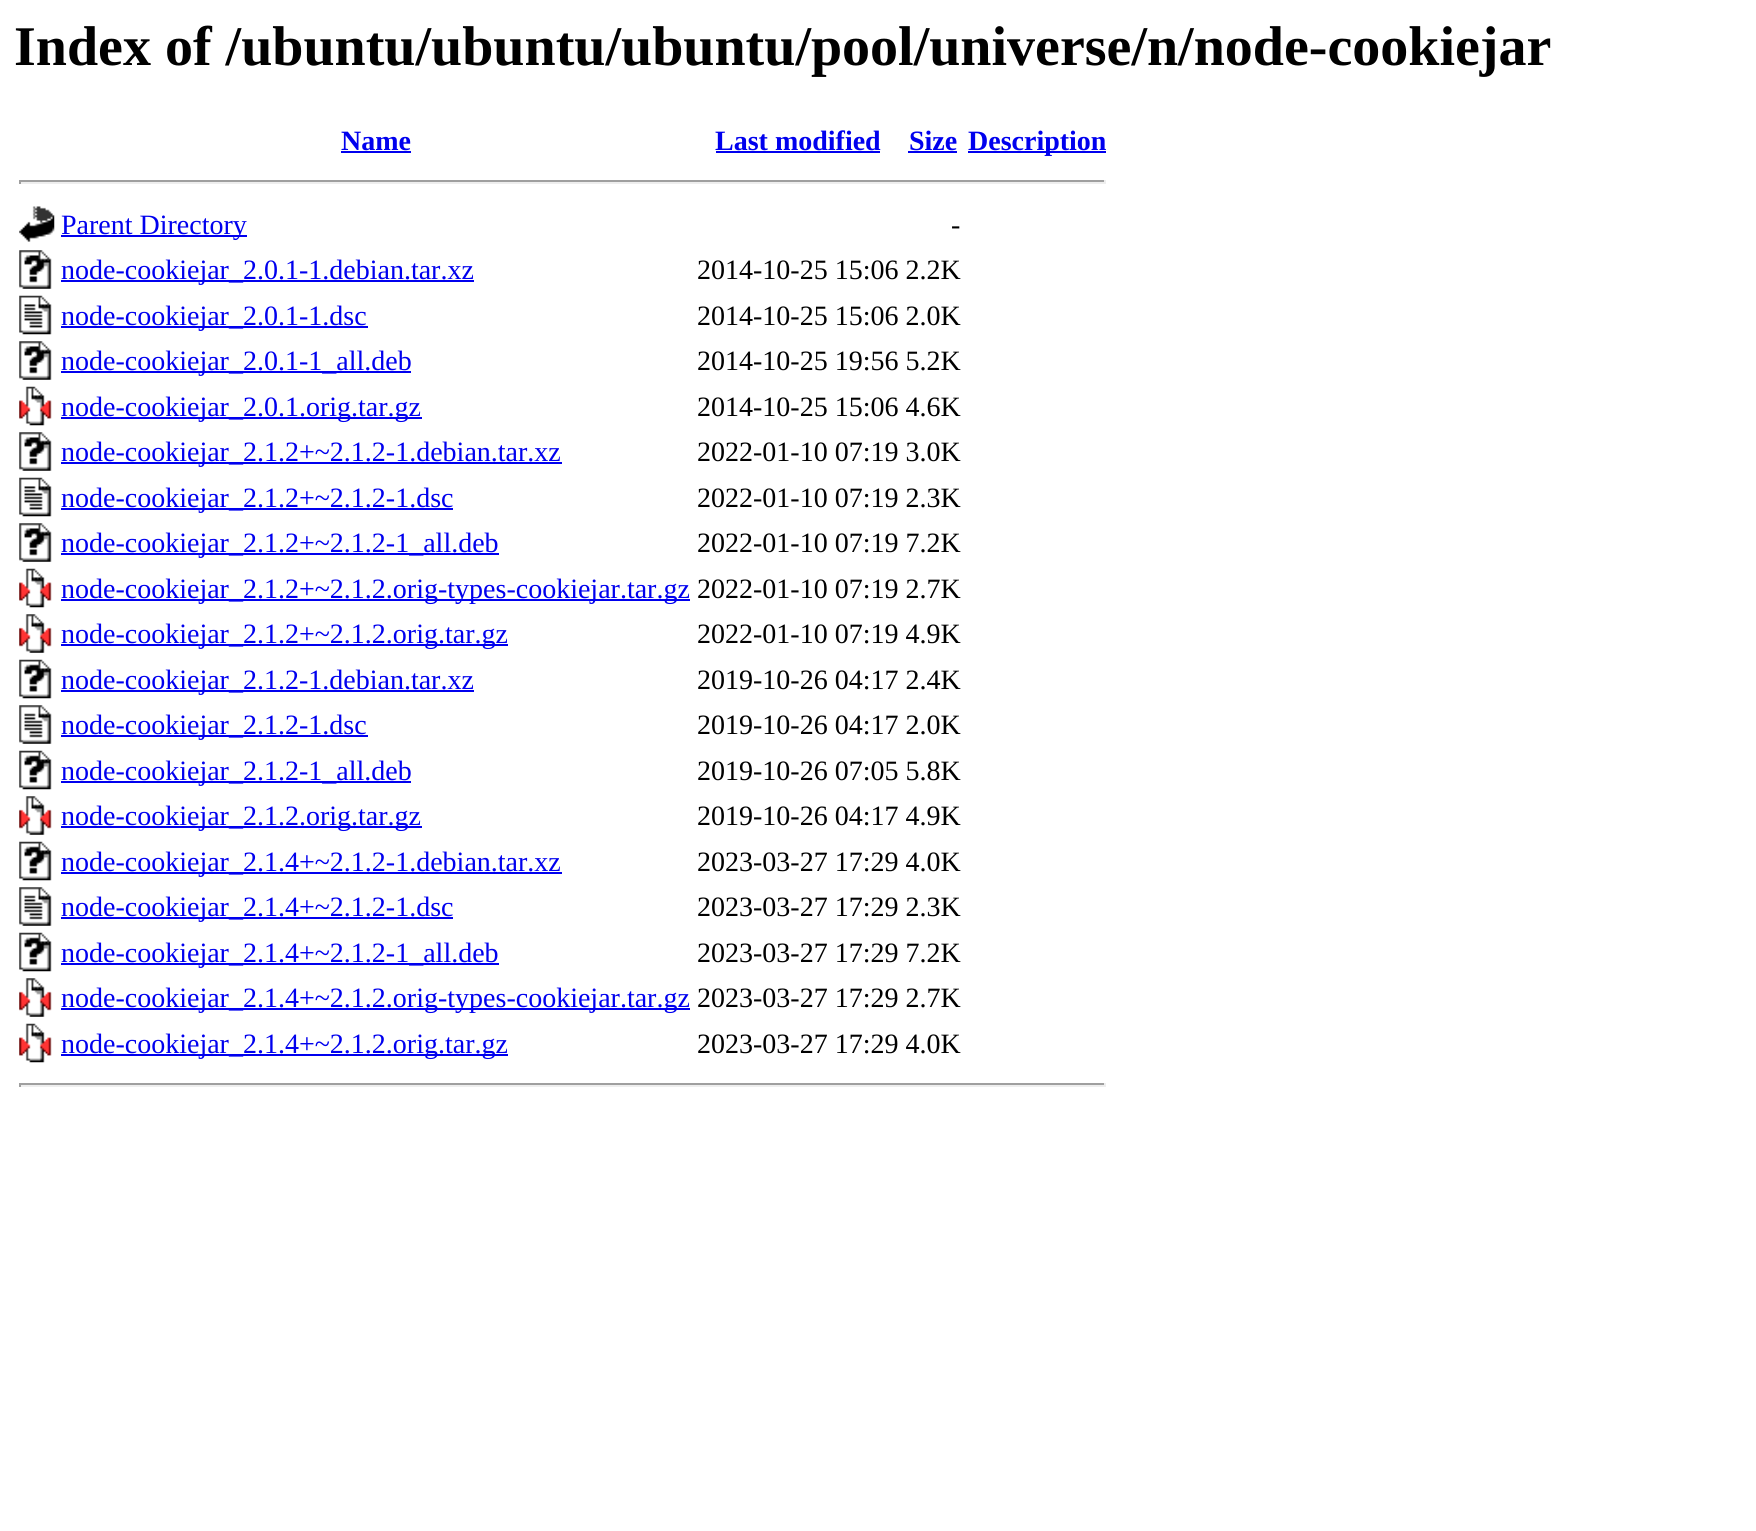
#include <cairo.h>
#include <math.h>
#include <stddef.h>

static cairo_t *c;
static void C(unsigned color){cairo_set_source_rgb(c, (color >> 16) / 255.0, (color >> 8 & 255) / 255.0, (color & 255) / 255.0);}
static void F(const char *family, double size, int italic, int bold){cairo_select_font_face(c, family, italic ? CAIRO_FONT_SLANT_ITALIC : CAIRO_FONT_SLANT_NORMAL,bold ? CAIRO_FONT_WEIGHT_BOLD : CAIRO_FONT_WEIGHT_NORMAL);cairo_set_font_size(c, size);}
static void T(double x, double y, const char *s){cairo_move_to(c, x, y);cairo_show_text(c, s);}
static void R(double x, double y, double w, double h){cairo_rectangle(c, x, y, w, h);cairo_fill(c);}
static void I(const char *path, double x, double y, double w, double h){cairo_surface_t *image = cairo_image_surface_create_from_png(path);cairo_save(c);cairo_set_source_surface(c, image, x, y);cairo_rectangle(c, x, y, w, h);cairo_fill(c);cairo_restore(c);cairo_surface_destroy(image);}
int main(void) {
cairo_surface_t *surface = cairo_image_surface_create(CAIRO_FORMAT_RGB24, 1756, 1531);
c = cairo_create(surface);
cairo_font_options_t *options = cairo_font_options_create();
cairo_font_options_set_hint_metrics(options, CAIRO_HINT_METRICS_OFF);
cairo_font_options_set_hint_style(options, CAIRO_HINT_STYLE_NONE);
cairo_set_font_options(c, options);
cairo_set_miter_limit(c, 4);
C(0xffffff);
cairo_paint(c);
F("Liberation Serif",56,0,1);
C(0x000000);
T(14,65,"Index of /ubuntu/ubuntu/ubuntu/pool/universe/n/node-cookiejar");
F("Liberation Serif",28,0,1);
C(0x0000ee);
T(341,150,"Name");
R(341,151,70,2);
T(715,150,"Last modified");
R(716,151,164,2);
T(909,150,"Size");
R(908,151,49,2);
R(968,151,138,2);
T(968,150,"Description");
C(0x9f9f9f);
R(19,180,1087,2);
C(0xeeeeee);
R(1104,180,2,4);
R(19,182,1087,2);
C(0x9f9f9f);
R(19,180,2,4);
I("1.png",19,206,36,36);
C(0x0000ee);
R(61,235,186,2);
F("Liberation Serif",28,0,0);
T(61,234,"Parent Directory");
C(0x000000);
T(951,234,"-");
I("2.png",19,250,33,39);
C(0x0000ee);
R(61,280,413,2);
T(61,279,"node-cookiejar_2.0.1-1.debian.tar.xz");
C(0x000000);
T(697,279,"2014-10-25 15:06 2.2K");
I("3.png",19,295,33,40);
C(0x0000ee);
R(61,326,307,2);
T(61,325,"node-cookiejar_2.0.1-1.dsc");
C(0x000000);
T(697,325,"2014-10-25 15:06 2.0K");
I("2.png",19,341,33,39);
C(0x0000ee);
R(61,371,350,2);
T(61,370,"node-cookiejar_2.0.1-1_all.deb");
C(0x000000);
T(697,370,"2014-10-25 19:56 5.2K");
I("4.png",19,386,33,40);
C(0x0000ee);
R(61,417,361,2);
T(61,416,"node-cookiejar_2.0.1.orig.tar.gz");
C(0x000000);
T(697,416,"2014-10-25 15:06 4.6K");
I("2.png",19,432,33,39);
C(0x0000ee);
R(61,462,501,2);
T(61,461,"node-cookiejar_2.1.2+~2.1.2-1.debian.tar.xz");
C(0x000000);
T(697,461,"2022-01-10 07:19 3.0K");
I("3.png",19,477,33,40);
C(0x0000ee);
R(61,508,392,2);
T(61,507,"node-cookiejar_2.1.2+~2.1.2-1.dsc");
C(0x000000);
T(697,507,"2022-01-10 07:19 2.3K");
I("2.png",19,523,33,39);
C(0x0000ee);
R(61,553,438,2);
T(61,552,"node-cookiejar_2.1.2+~2.1.2-1_all.deb");
C(0x000000);
T(697,552,"2022-01-10 07:19 7.2K");
I("4.png",19,568,33,40);
C(0x0000ee);
R(61,599,629,2);
T(61,598,"node-cookiejar_2.1.2+~2.1.2.orig-types-cookiejar.tar.gz");
C(0x000000);
T(697,598,"2022-01-10 07:19 2.7K");
I("5.png",19,614,33,39);
C(0x0000ee);
R(61,644,447,2);
T(61,643,"node-cookiejar_2.1.2+~2.1.2.orig.tar.gz");
C(0x000000);
T(697,643,"2022-01-10 07:19 4.9K");
I("6.png",19,659,33,40);
C(0x0000ee);
R(61,690,413,2);
T(61,689,"node-cookiejar_2.1.2-1.debian.tar.xz");
C(0x000000);
T(697,689,"2019-10-26 04:17 2.4K");
I("7.png",19,705,33,39);
C(0x0000ee);
R(61,735,307,2);
T(61,734,"node-cookiejar_2.1.2-1.dsc");
C(0x000000);
T(697,734,"2019-10-26 04:17 2.0K");
I("6.png",19,750,33,40);
C(0x0000ee);
R(61,781,350,2);
T(61,780,"node-cookiejar_2.1.2-1_all.deb");
C(0x000000);
T(697,780,"2019-10-26 07:05 5.8K");
I("5.png",19,796,33,39);
C(0x0000ee);
R(61,826,361,2);
T(61,825,"node-cookiejar_2.1.2.orig.tar.gz");
C(0x000000);
T(697,825,"2019-10-26 04:17 4.9K");
I("6.png",19,841,33,40);
C(0x0000ee);
R(61,872,501,2);
T(61,871,"node-cookiejar_2.1.4+~2.1.2-1.debian.tar.xz");
C(0x000000);
T(697,871,"2023-03-27 17:29 4.0K");
I("7.png",19,887,33,39);
C(0x0000ee);
R(61,917,392,2);
T(61,916,"node-cookiejar_2.1.4+~2.1.2-1.dsc");
C(0x000000);
T(697,916,"2023-03-27 17:29 2.3K");
I("6.png",19,932,33,40);
C(0x0000ee);
R(61,963,438,2);
T(61,962,"node-cookiejar_2.1.4+~2.1.2-1_all.deb");
C(0x000000);
T(697,962,"2023-03-27 17:29 7.2K");
I("5.png",19,978,33,39);
C(0x0000ee);
R(61,1008,629,2);
T(61,1007,"node-cookiejar_2.1.4+~2.1.2.orig-types-cookiejar.tar.gz");
C(0x000000);
T(697,1007,"2023-03-27 17:29 2.7K");
I("4.png",19,1023,33,40);
C(0x0000ee);
R(61,1054,447,2);
T(61,1053,"node-cookiejar_2.1.4+~2.1.2.orig.tar.gz");
C(0x000000);
T(697,1053,"2023-03-27 17:29 4.0K");
C(0x9f9f9f);
R(19,1083,1087,2);
C(0xeeeeee);
R(1104,1083,2,4);
R(19,1085,1087,2);
C(0x9f9f9f);
R(19,1083,2,4);
cairo_surface_write_to_png(surface, "o.png");
cairo_font_options_destroy(options);
cairo_destroy(c);
cairo_surface_destroy(surface);
return 0;
}
